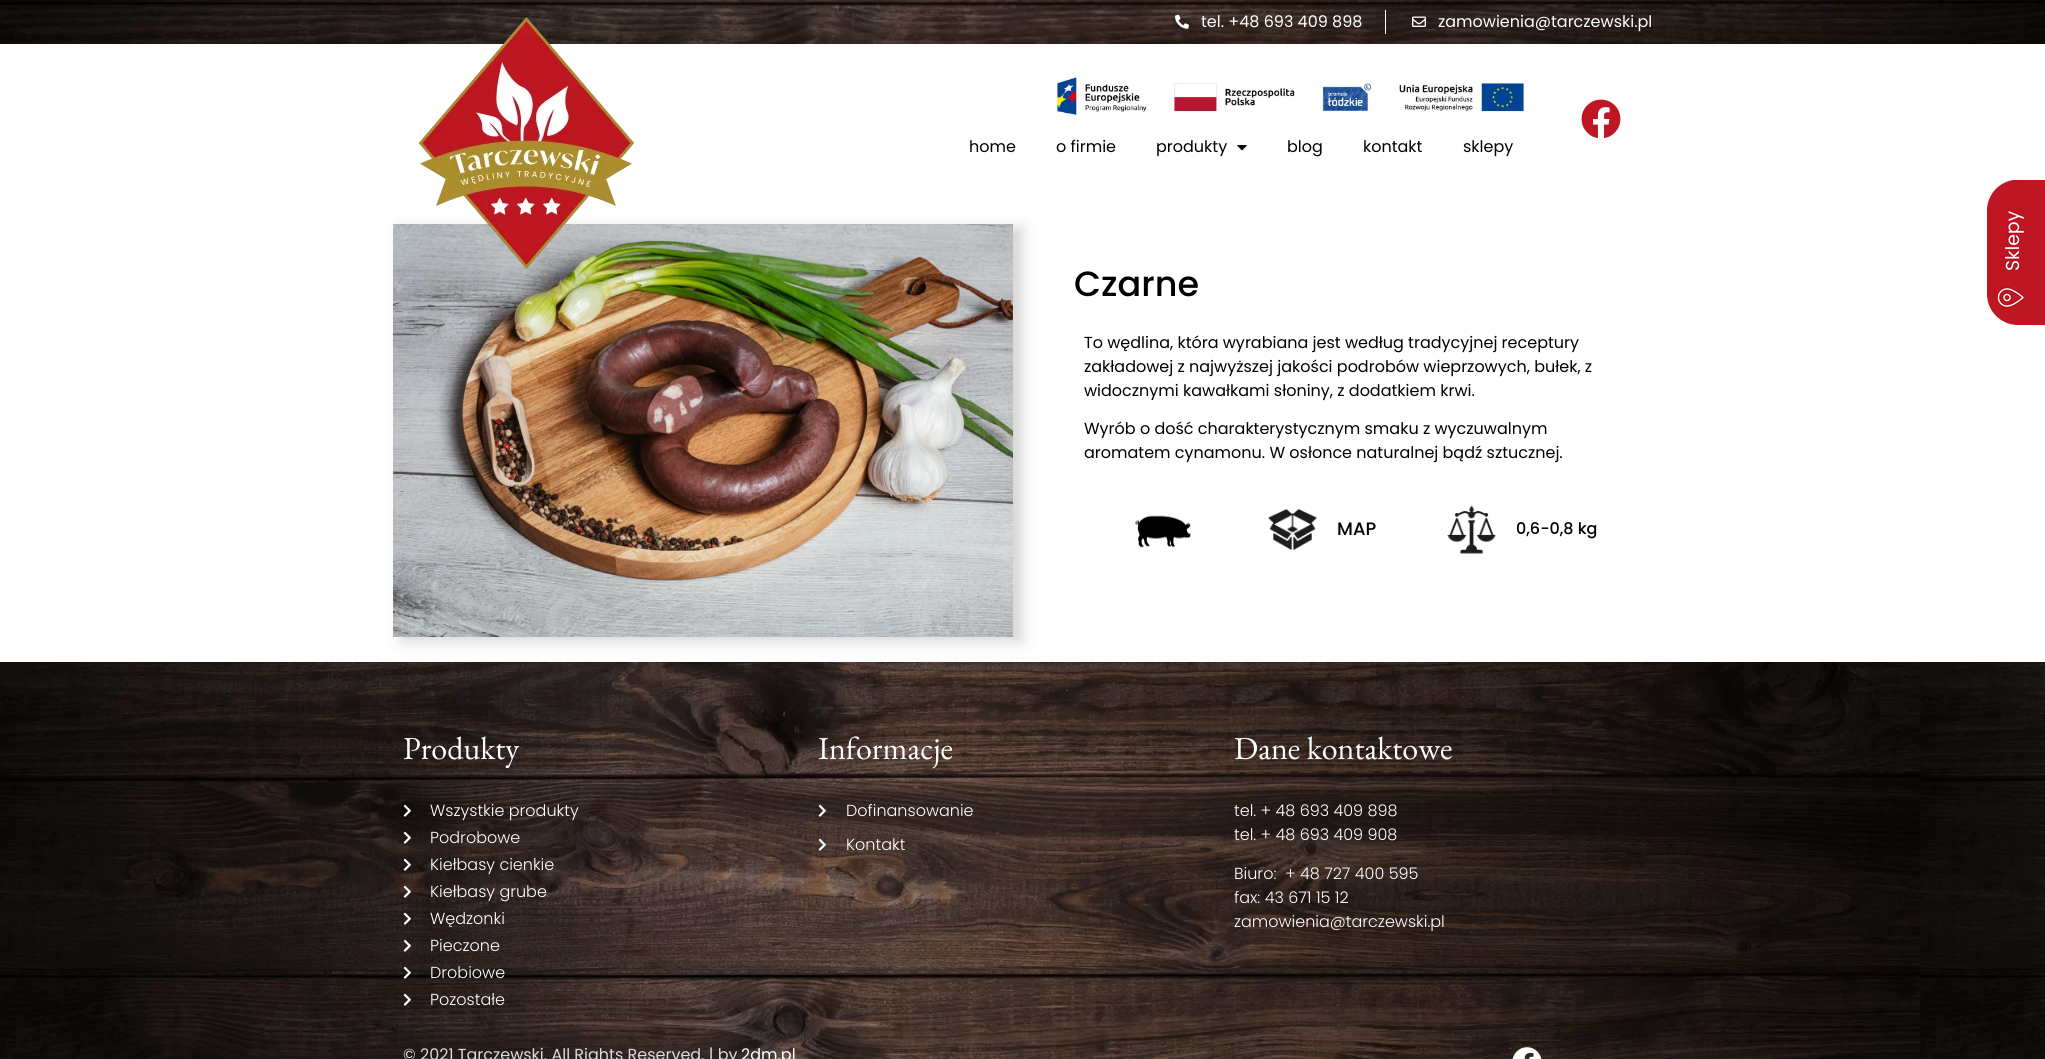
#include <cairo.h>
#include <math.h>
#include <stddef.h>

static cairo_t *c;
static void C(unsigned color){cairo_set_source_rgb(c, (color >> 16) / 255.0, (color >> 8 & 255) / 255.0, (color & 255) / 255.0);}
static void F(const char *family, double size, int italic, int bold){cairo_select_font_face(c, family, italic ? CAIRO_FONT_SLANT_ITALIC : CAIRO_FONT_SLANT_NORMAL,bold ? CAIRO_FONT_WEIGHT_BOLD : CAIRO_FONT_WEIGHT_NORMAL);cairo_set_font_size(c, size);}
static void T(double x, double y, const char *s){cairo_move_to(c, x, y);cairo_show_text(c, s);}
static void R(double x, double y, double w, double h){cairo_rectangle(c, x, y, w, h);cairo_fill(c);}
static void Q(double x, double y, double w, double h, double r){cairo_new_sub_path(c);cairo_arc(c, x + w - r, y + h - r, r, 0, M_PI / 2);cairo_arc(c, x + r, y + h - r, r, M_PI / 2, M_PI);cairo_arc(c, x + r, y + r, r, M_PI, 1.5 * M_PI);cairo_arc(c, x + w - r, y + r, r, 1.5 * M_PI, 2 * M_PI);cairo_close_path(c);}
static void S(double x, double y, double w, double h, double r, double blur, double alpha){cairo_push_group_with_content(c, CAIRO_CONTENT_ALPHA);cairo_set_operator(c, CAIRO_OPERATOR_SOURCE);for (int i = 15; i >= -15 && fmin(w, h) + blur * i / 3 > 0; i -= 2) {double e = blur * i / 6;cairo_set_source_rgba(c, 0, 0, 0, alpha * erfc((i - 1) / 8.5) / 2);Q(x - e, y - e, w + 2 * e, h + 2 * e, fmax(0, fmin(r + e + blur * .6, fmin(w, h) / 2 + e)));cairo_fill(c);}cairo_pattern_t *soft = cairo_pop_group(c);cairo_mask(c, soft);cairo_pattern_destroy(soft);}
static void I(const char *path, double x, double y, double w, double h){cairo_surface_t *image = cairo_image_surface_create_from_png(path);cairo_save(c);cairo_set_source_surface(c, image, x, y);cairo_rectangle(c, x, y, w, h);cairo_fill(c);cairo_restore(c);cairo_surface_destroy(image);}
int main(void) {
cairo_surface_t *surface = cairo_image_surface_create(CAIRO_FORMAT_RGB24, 2045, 1059);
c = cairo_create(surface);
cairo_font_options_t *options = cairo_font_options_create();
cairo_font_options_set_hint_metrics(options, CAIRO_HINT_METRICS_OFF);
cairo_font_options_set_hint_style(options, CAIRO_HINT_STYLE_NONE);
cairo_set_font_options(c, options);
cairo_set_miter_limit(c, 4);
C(0xffffff);
cairo_paint(c);
I("1.png",0,0,2045,44);
I("2.png",1175,14,14,15);
F("Poppins",16,0,0);
C(0xffffff);
T(1201,27,"tel. +48 693 409 898");
R(1385,10,1,24);
I("3.png",1412,16,14,11);
T(1438,27,"zamowienia@tarczewski.pl");
C(0x000000);
S(402,228,620,413,0,7.5,.17);
I("9.png",393,224,620,413);
I("4.png",418,17,216,252);
I("5.png",1581,99,40,40);
I("6.png",1055,76,470,40);
C(0x000000);
T(969,152,"home");
T(1056,152,"o firmie");
T(1156,152,"produkty");
I("7.png",1237,145,10,6);
T(1287,152,"blog");
T(1363,152,"kontakt");
T(1463,152,"sklepy");
I("8.png",1987,180,58,145);
F("Poppins Medium",35,0,0);
T(1074,296,"Czarne");
F("Poppins",16,0,0);
T(1084,348,"To wędlina, która wyrabiana jest według tradycyjnej receptury");
T(1084,372,"zakładowej z najwyższej jakości podrobów wieprzowych, bułek, z");
T(1084,396,"widocznymi kawałkami słoniny, z dodatkiem krwi.");
T(1084,434,"Wyrób o dość charakterystycznym smaku z wyczuwalnym");
T(1084,458,"aromatem cynamonu. W osłonce naturalnej bądź sztucznej.");
I("10.png",1135,515,56,33);
I("11.png",1268,509,49,41);
F("Poppins Medium",18,0,0);
T(1337,535,"MAP");
I("12.png",1447,505,49,49);
F("Poppins Medium",16,0,0);
T(1516,534,"0,6-0,8 kg");
I("13.png",0,662,2045,397);
F("EB Garamond",32,0,0);
C(0xffffff);
T(403,759,"Produkty");
I("14.png",403,804,8,13);
F("Poppins Light",16,0,0);
T(430,816,"Wszystkie produkty");
I("15.png",403,831,8,13);
T(430,843,"Podrobowe");
I("16.png",403,858,8,13);
T(430,870,"Kiełbasy cienkie");
I("17.png",403,885,8,13);
T(430,897,"Kiełbasy grube");
I("18.png",403,912,8,13);
T(430,924,"Wędzonki");
I("19.png",403,939,8,13);
T(430,951,"Pieczone");
I("20.png",403,966,8,13);
T(430,978,"Drobiowe");
I("21.png",403,993,8,13);
T(430,1005,"Pozostałe");
F("EB Garamond",32,0,0);
T(818,759,"Informacje");
I("22.png",818,804,8,13);
F("Poppins Light",16,0,0);
T(846,816,"Dofinansowanie");
I("23.png",818,838,8,13);
T(846,850,"Kontakt");
F("EB Garamond",32,0,0);
T(1234,759,"Dane kontaktowe");
F("Poppins Light",16,0,0);
T(1234,816,"tel. + 48 693 409 898");
T(1234,840,"tel. + 48 693 409 908");
T(1234,879,"Biuro:  + 48 727 400 595");
T(1234,903,"fax: 43 671 15 12");
T(1234,927,"zamowienia@tarczewski.pl");
F("Poppins",16,0,0);
C(0xdadada);
T(403,1060,"© 2021 Tarczewski. All Rights Reserved. | by");
C(0xffffff);
T(741,1060,"2dm.pl");
I("24.png",1512,1047,30,12);
cairo_surface_write_to_png(surface, "o.png");
cairo_font_options_destroy(options);
cairo_destroy(c);
cairo_surface_destroy(surface);
return 0;
}
